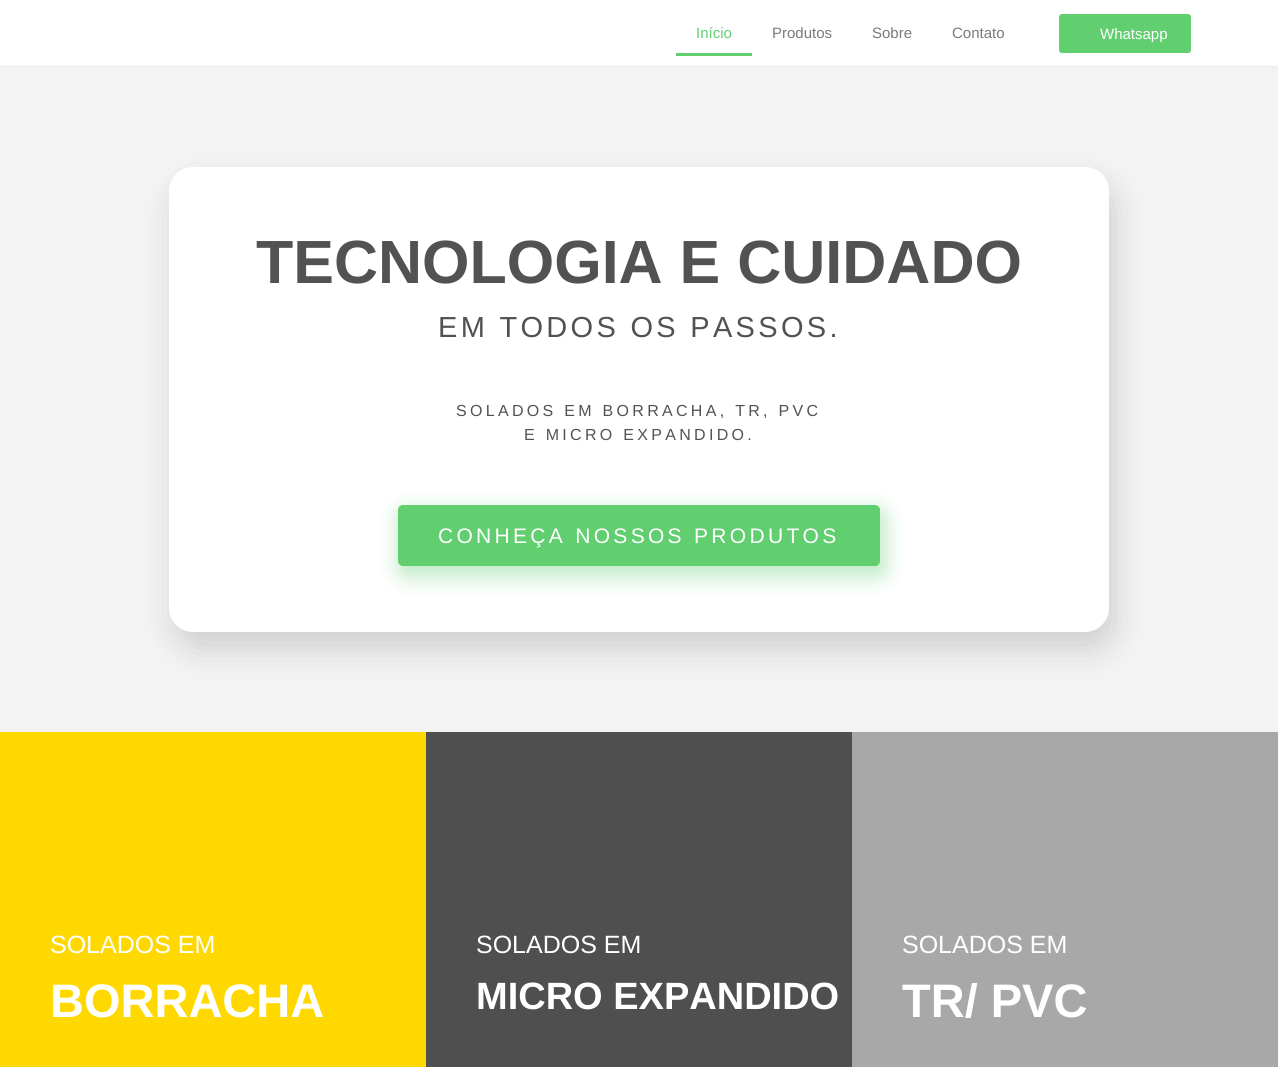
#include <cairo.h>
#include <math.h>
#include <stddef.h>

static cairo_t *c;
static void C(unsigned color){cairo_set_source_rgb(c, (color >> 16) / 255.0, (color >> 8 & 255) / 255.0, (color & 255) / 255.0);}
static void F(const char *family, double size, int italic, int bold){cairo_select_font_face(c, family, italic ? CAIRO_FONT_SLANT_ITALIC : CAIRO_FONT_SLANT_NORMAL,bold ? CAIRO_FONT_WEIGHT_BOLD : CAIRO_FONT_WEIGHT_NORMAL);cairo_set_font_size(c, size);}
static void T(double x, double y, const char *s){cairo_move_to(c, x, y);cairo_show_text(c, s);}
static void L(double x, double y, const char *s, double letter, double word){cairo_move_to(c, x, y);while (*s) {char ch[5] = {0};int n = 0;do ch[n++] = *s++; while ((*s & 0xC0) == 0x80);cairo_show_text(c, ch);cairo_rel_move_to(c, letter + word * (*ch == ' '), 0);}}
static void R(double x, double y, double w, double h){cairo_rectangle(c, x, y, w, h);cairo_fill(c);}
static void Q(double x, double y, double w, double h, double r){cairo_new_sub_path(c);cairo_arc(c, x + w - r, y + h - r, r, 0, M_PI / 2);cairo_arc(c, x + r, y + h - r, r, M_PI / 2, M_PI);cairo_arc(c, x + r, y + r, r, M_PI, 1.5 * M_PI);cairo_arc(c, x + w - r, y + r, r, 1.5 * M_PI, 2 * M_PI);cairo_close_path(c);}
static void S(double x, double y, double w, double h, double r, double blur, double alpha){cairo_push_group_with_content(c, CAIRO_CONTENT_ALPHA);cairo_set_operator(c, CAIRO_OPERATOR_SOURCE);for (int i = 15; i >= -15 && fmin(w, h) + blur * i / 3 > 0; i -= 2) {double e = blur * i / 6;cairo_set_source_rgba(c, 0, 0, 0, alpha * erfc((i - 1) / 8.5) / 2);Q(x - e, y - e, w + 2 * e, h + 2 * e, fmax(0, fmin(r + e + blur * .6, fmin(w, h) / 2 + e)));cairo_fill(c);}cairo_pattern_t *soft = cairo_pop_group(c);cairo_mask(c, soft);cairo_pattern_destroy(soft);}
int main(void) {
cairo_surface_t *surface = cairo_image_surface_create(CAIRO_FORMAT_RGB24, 1278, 1067);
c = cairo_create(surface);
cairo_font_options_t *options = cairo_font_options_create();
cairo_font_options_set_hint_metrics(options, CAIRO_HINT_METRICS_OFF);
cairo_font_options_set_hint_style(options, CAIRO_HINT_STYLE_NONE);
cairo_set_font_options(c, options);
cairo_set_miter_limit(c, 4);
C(0xffffff);
cairo_paint(c);
C(0xeaeaea);
R(0,66,1278,1);
F("Liberation Sans",15,0,0);
C(0x61ce70);
T(696,38,"Início");
R(676,53,76,3);
C(0x7a7a7a);
T(772,38,"Produtos");
T(872,38,"Sobre");
T(952,38,"Contato");
C(0x61ce70);
Q(1059,14,132,39,3);
cairo_fill(c);
C(0xffffff);
T(1100,39,"Whatsapp");
C(0xf3f3f3);
R(0,67,1278,665);
C(0x000000);
S(175,184,940,465,24,16.5,.15);
C(0xffffff);
Q(169,167,940,465,24);
cairo_fill(c);
F("Liberation Sans",61,0,1);
C(0x525252);
T(256,283,"TECNOLOGIA E CUIDADO");
F("Liberation Sans",29,0,0);
L(438,337,"EM TODOS OS PASSOS.",3.3,0);
F("Liberation Sans",16,0,0);
L(456,416,"SOLADOS EM BORRACHA, TR, PVC",3.3,0);
L(524,440,"E MICRO EXPANDIDO.",3.3,0);
C(0x0ab322);
S(397,509,490,69,9,9.5,.25);
C(0x61ce70);
Q(398,505,482,61,5);
cairo_fill(c);
F("Liberation Sans",21,0,0);
C(0xffffff);
L(438,543,"CONHEÇA NOSSOS PRODUTOS",3.3,0);
C(0xffd800);
R(0,732,426,335);
F("Liberation Sans",25,0,0);
C(0xffffff);
T(50,953,"SOLADOS EM");
F("Liberation Sans",47,0,1);
T(50,1017,"BORRACHA");
C(0x4f4f4f);
R(426,732,426,335);
F("Liberation Sans",25,0,0);
C(0xffffff);
T(476,953,"SOLADOS EM");
F("Liberation Sans",38,0,1);
T(476,1009,"MICRO EXPANDIDO");
C(0xa8a8a8);
R(852,732,426,335);
F("Liberation Sans",25,0,0);
C(0xffffff);
T(902,953,"SOLADOS EM");
F("Liberation Sans",47,0,1);
T(902,1017,"TR/ PVC");
cairo_surface_write_to_png(surface, "o.png");
cairo_font_options_destroy(options);
cairo_destroy(c);
cairo_surface_destroy(surface);
return 0;
}
